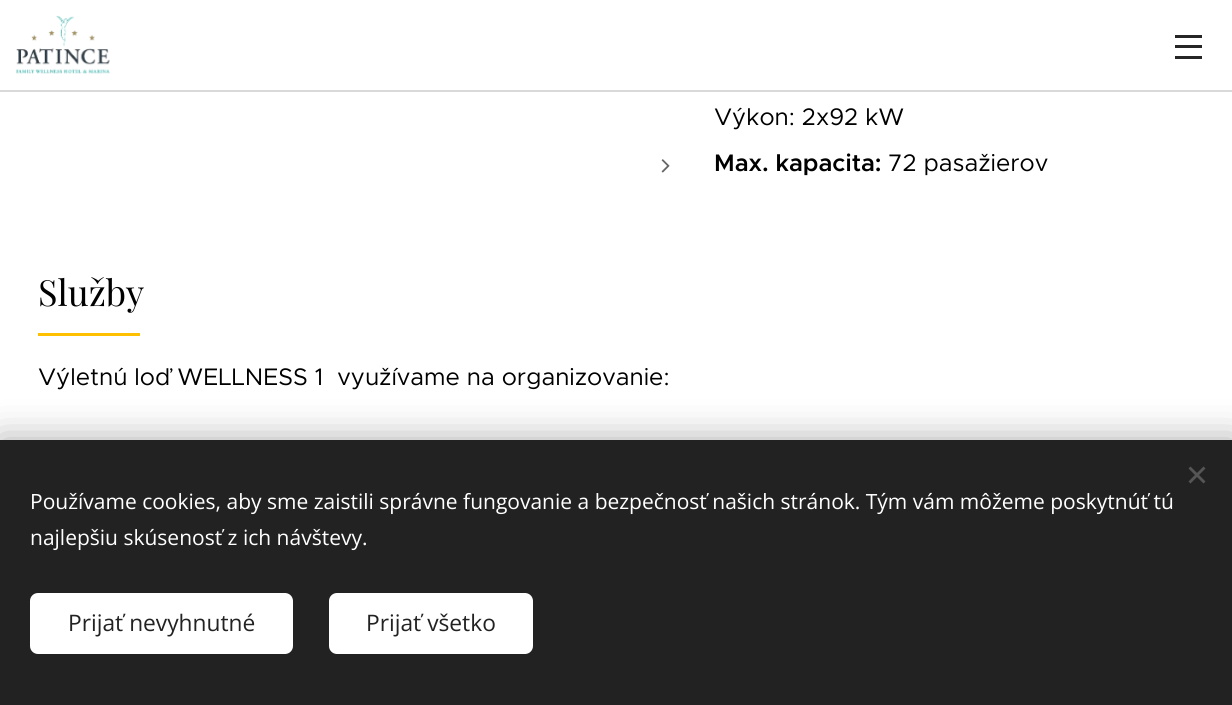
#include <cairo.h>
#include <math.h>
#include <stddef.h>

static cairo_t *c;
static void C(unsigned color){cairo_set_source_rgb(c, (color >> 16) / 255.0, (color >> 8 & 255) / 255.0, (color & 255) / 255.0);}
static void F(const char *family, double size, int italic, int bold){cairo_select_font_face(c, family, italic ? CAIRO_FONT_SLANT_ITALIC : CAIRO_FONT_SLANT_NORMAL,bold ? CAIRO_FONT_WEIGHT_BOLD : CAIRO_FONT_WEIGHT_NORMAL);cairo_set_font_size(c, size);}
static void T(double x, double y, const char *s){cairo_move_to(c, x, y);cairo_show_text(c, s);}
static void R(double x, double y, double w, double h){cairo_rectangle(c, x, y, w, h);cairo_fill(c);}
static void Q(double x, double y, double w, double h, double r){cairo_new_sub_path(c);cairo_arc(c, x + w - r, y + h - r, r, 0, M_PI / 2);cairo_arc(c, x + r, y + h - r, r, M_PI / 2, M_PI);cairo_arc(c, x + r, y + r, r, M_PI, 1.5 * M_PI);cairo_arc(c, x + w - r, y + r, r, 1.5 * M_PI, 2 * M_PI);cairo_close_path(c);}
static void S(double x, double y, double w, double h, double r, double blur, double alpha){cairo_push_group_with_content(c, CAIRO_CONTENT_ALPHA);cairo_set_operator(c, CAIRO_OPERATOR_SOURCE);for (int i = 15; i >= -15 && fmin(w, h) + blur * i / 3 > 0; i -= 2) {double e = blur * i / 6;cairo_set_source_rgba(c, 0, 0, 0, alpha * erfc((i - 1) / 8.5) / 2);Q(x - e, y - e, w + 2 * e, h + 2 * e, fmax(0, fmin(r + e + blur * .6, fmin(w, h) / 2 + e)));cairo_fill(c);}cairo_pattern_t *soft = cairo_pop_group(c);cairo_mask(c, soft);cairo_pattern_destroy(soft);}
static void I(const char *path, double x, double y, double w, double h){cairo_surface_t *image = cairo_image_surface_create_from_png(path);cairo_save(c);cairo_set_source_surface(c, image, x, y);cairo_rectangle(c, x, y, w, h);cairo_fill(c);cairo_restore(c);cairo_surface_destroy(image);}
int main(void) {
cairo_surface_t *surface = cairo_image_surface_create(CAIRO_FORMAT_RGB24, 1232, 705);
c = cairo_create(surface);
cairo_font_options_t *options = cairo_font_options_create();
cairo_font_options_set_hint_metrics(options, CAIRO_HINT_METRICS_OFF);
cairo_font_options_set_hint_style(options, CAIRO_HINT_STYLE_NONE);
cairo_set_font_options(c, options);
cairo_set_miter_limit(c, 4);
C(0xffffff);
cairo_paint(c);
C(0xd9d9d9);
R(0,90,1232,2);
I("1.png",16,15,94,59);
C(0x262626);
R(1175,45,27,3);
R(1175,35,27,3);
R(1175,56,27,3);
F("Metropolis",24,0,0);
C(0x000000);
T(714,125,"Výkon: 2x92 kW");
I("2.png",661,159,9,14);
F("Metropolis SemiBold",24,0,0);
T(714,171,"Max. kapacita:");
F("Metropolis",24,0,0);
T(888,171,"72 pasažierov");
F("Playfair Display",36,0,0);
T(38,306,"Služby");
C(0xffc000);
R(38,333,102,3);
F("Metropolis",24,0,0);
C(0x000000);
T(38,385,"Výletnú loď WELLNESS 1  využívame na organizovanie:");
C(0x000000);
S(0,440,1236,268,0,19,.33);
C(0x222222);
R(0,440,1232,265);
C(0x555555);
cairo_new_path(c);
cairo_move_to(c,1188.5,481.5);
cairo_line_to(c,1203.5,466.5);
cairo_line_to(c,1205.5,468.5);
cairo_line_to(c,1190.5,483.5);
cairo_close_path(c);
cairo_fill(c);
cairo_new_path(c);
cairo_move_to(c,1190.5,466.5);
cairo_line_to(c,1205.5,481.5);
cairo_line_to(c,1203.5,483.5);
cairo_line_to(c,1188.5,468.5);
cairo_close_path(c);
cairo_fill(c);
F("Open Sans",21,0,0);
C(0xffffff);
T(30,509,"Používame cookies, aby sme zaistili správne fungovanie a bezpečnosť našich stránok. Tým vám môžeme poskytnúť tú");
T(30,545,"najlepšiu skúsenosť z ich návštevy.");
Q(30,593,263,61,8);
cairo_fill(c);
F("Open Sans",22.75,0,0);
C(0x222222);
T(68,631,"Prijať nevyhnutné");
C(0xffffff);
Q(329,593,204,61,8);
cairo_fill(c);
C(0x222222);
T(366,631,"Prijať všetko");
cairo_surface_write_to_png(surface, "o.png");
cairo_font_options_destroy(options);
cairo_destroy(c);
cairo_surface_destroy(surface);
return 0;
}
